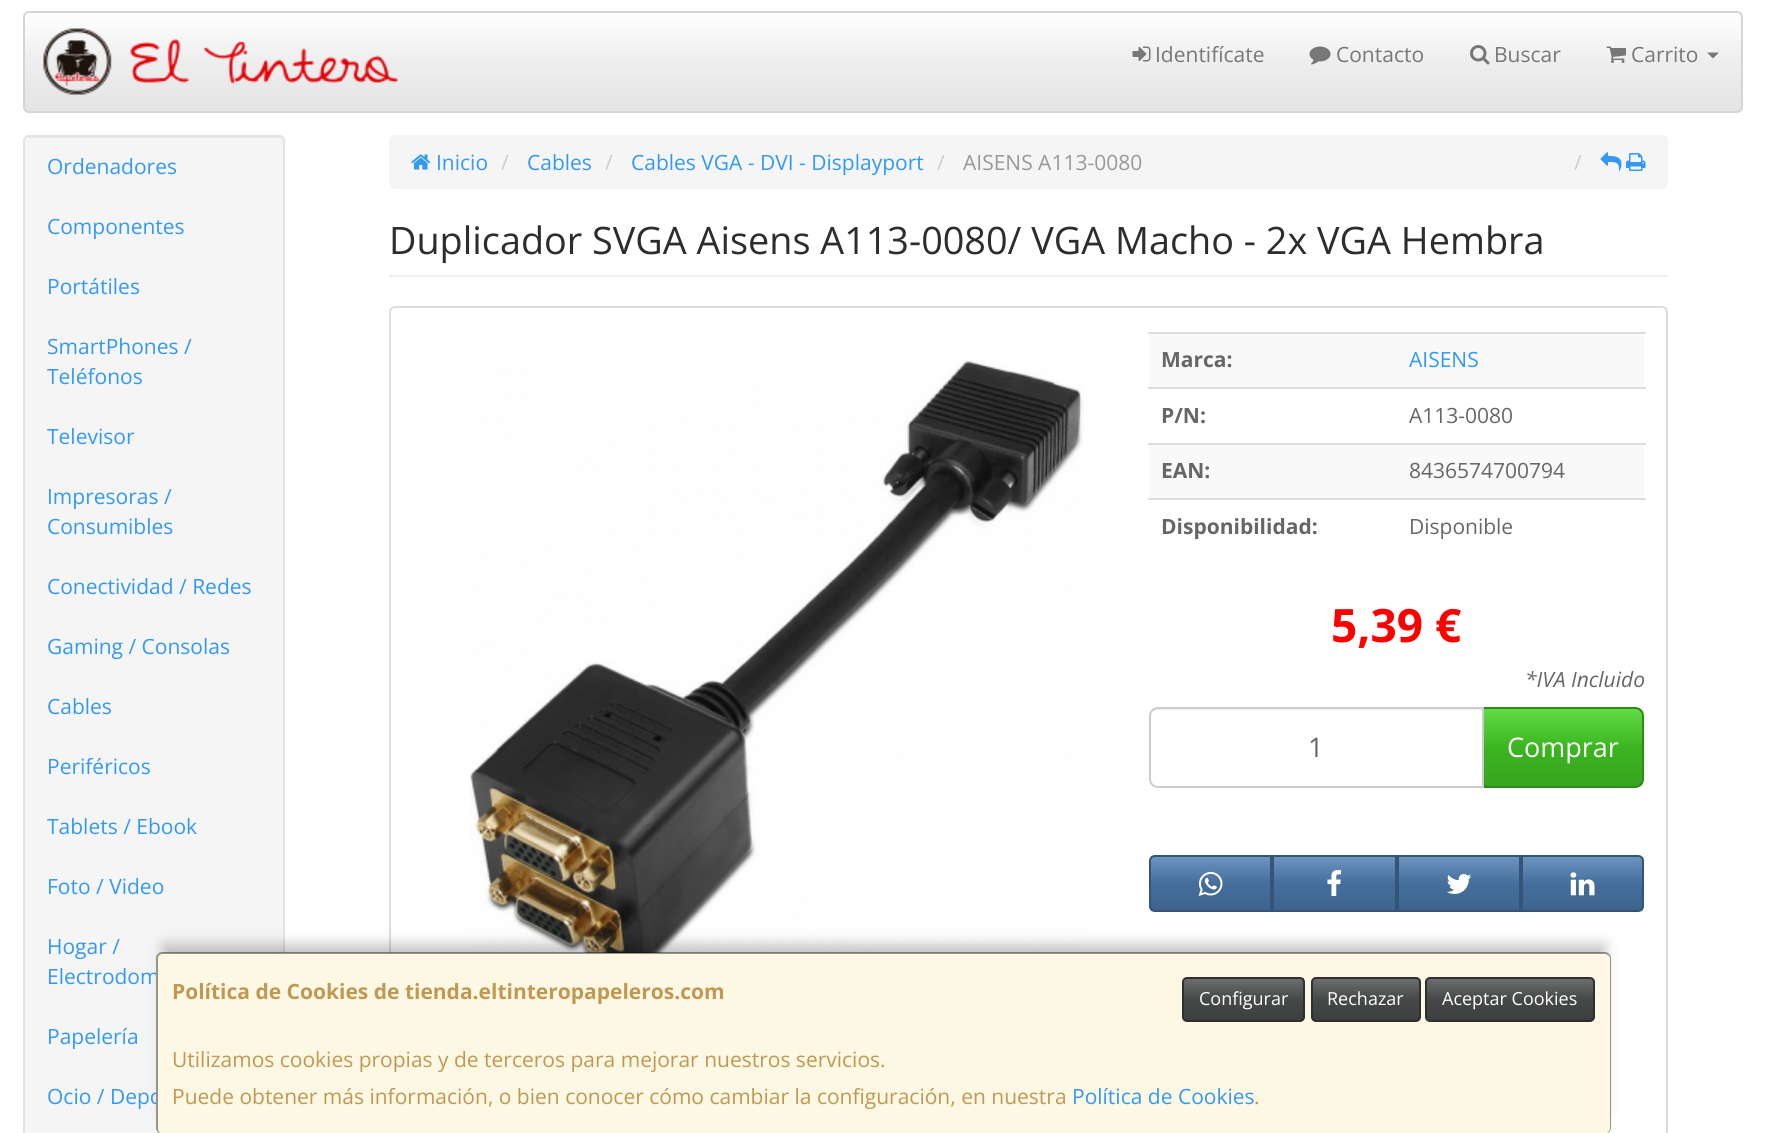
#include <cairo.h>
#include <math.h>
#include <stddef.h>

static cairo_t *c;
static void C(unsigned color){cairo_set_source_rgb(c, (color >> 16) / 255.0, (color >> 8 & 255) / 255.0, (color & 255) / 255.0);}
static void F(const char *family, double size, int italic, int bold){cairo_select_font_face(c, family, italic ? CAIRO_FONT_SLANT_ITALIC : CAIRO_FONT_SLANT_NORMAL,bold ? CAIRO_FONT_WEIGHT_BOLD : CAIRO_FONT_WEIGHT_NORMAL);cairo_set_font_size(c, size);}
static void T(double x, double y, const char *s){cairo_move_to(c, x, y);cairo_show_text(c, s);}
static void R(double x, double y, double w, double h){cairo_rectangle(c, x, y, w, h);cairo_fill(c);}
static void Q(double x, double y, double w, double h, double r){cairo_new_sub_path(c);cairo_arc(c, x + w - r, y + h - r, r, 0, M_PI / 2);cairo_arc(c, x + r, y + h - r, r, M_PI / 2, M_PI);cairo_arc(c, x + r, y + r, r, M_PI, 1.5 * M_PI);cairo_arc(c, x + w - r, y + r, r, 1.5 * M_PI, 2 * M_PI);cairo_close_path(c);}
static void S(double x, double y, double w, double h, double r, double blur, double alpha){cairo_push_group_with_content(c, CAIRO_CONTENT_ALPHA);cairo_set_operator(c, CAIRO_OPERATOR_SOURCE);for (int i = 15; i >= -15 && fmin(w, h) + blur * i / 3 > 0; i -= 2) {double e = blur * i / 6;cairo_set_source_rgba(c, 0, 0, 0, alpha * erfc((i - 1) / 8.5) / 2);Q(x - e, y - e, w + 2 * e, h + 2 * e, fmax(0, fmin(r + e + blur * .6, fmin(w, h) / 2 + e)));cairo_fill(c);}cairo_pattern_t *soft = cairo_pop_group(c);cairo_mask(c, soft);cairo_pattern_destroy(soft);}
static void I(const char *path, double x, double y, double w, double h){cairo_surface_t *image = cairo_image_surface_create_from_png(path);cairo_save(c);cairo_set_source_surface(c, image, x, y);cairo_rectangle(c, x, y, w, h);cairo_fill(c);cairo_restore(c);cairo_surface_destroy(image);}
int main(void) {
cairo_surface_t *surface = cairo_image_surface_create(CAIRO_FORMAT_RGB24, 1765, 1133);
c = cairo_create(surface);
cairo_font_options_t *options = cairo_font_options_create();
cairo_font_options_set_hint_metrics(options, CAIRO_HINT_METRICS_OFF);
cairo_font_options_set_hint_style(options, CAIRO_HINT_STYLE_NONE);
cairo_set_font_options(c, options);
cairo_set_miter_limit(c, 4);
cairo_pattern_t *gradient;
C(0xffffff);
cairo_paint(c);
cairo_save(c);
Q(23,11,1720,102,6);
cairo_clip(c);
gradient = cairo_pattern_create_linear(883,12,883,111);
cairo_pattern_add_color_stop_rgba(gradient,0,1,1,1,1);
cairo_pattern_add_color_stop_rgba(gradient,.5,0.933,0.933,0.933,1);
cairo_pattern_add_color_stop_rgba(gradient,1,0.894,0.894,0.894,1);
cairo_set_source(c,gradient);
cairo_pattern_destroy(gradient);
R(24,12,1718,99);
cairo_restore(c);
Q(24,12,1718,100,5);
C(0xd5d5d5);
cairo_stroke(c);
I("1.png",43,28,355,67);
I("2.png",1132,46,19,16);
F("Open Sans",21,0,0);
C(0x777777);
T(1155,62,"Identifícate");
I("3.png",1309,46,22,19);
T(1336,62,"Contacto");
I("4.png",1470,45,20,20);
T(1494,62,"Buscar");
I("5.png",1606,46,20,17);
T(1631,62,"Carrito");
cairo_new_path(c);
cairo_move_to(c,1707,52.5);
cairo_line_to(c,1719,52.5);
cairo_line_to(c,1713,58.5);
cairo_close_path(c);
cairo_fill(c);
C(0xf5f5f5);
Q(23,135,262,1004,6);
cairo_fill(c);
C(0xe9e9e9);
cairo_new_path(c);
cairo_move_to(c,28,138);
cairo_line_to(c,279,138);
cairo_curve_to(c,281,138,284,140,284,142);
cairo_curve_to(c,284,139,282,137,279,137);
cairo_line_to(c,29,137);
cairo_curve_to(c,26,137,24,139,24,142);
cairo_curve_to(c,24,140,26,138,28,138);
cairo_close_path(c);
cairo_fill(c);
Q(24,136,260,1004,5);
C(0xe3e3e3);
cairo_stroke(c);
C(0x3399f3);
T(47,174,"Ordenadores");
T(47,234,"Componentes");
T(47,294,"Portátiles");
T(47,354,"SmartPhones /");
T(47,384,"Teléfonos");
T(47,444,"Televisor");
T(47,504,"Impresoras /");
T(47,534,"Consumibles");
T(47,594,"Conectividad / Redes");
T(47,654,"Gaming / Consolas");
T(47,714,"Cables");
T(47,774,"Periféricos");
T(47,834,"Tablets / Ebook");
T(47,894,"Foto / Video");
T(47,954,"Hogar /");
T(47,984,"Electrodom");
T(47,1044,"Papelería");
T(47,1104,"Ocio / Depo");
C(0xf5f5f5);
Q(389,135,1279,54,6);
cairo_fill(c);
I("6.png",411,154,20,16);
C(0x3399f3);
T(436,170,"Inicio");
C(0xcccccc);
T(501,170,"/");
C(0x3399f3);
T(527,170,"Cables");
C(0xcccccc);
T(605,170,"/");
C(0x3399f3);
T(631,170,"Cables VGA - DVI - Displayport");
C(0xcccccc);
T(937,170,"/");
C(0x999999);
T(963,170,"AISENS A113-0080");
C(0xcccccc);
T(1574,170,"/");
I("7.png",1600,152,22,19);
I("8.png",1626,153,20,18);
C(0xeeeeee);
R(389,275,1279,2);
F("Open Sans",37.8,0,0);
C(0x2d2d2d);
T(389,254,"Duplicador SVGA Aisens A113-0080/ VGA Macho - 2x VGA Hembra");
Q(390,307,1277,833,5);
C(0xdddddd);
cairo_stroke(c);
I("9.png",469,360,615,593);
C(0xf9f9f9);
R(1149,334,495,53);
F("Open Sans",21,0,1);
C(0x666666);
T(1161,367,"Marca:");
C(0xdddddd);
R(1148,332,498,2);
F("Open Sans",21,0,0);
C(0x3399f3);
T(1409,367,"AISENS");
F("Open Sans",21,0,1);
C(0x666666);
T(1161,423,"P/N:");
C(0xdddddd);
R(1148,387,498,2);
F("Open Sans",21,0,0);
C(0x666666);
T(1409,423,"A113-0080");
C(0xf9f9f9);
R(1149,445,495,53);
F("Open Sans",21,0,1);
C(0x666666);
T(1161,478,"EAN:");
C(0xdddddd);
R(1148,443,498,2);
F("Open Sans",21,0,0);
C(0x666666);
T(1409,478,"8436574700794");
F("Open Sans",21,0,1);
T(1161,534,"Disponibilidad:");
C(0xdddddd);
R(1148,498,498,2);
F("Open Sans",21,0,0);
C(0x666666);
T(1409,534,"Disponible");
F("Open Sans",46,0,1);
C(0xff0000);
T(1331,642,"5,39 €");
F("Open Sans",21,1,0);
C(0x666666);
T(1525,687,"*IVA Incluido");
cairo_save(c);
cairo_new_path(c);
cairo_move_to(c,1482,707);
cairo_line_to(c,1635,707);
cairo_curve_to(c,1640,707,1644,711,1644,716);
cairo_line_to(c,1644,779);
cairo_curve_to(c,1644,784,1640,788,1635,788);
cairo_line_to(c,1482,788);
cairo_close_path(c);
cairo_clip(c);
gradient = cairo_pattern_create_linear(1563,708,1563,786);
cairo_pattern_add_color_stop_rgba(gradient,0,0.38,0.867,0.271,1);
cairo_pattern_add_color_stop_rgba(gradient,.5,0.235,0.71,0.129,1);
cairo_pattern_add_color_stop_rgba(gradient,1,0.212,0.643,0.118,1);
cairo_set_source(c,gradient);
cairo_pattern_destroy(gradient);
R(1484,708,159,78);
cairo_restore(c);
cairo_new_path(c);
cairo_move_to(c,1483,708);
cairo_line_to(c,1635,708);
cairo_curve_to(c,1639.5,708,1643,711.5,1643,716);
cairo_line_to(c,1643,779);
cairo_curve_to(c,1643,783.5,1639.5,787,1635,787);
cairo_line_to(c,1483,787);
cairo_close_path(c);
C(0x2e8a19);
cairo_stroke(c);
C(0xffffff);
cairo_new_path(c);
cairo_move_to(c,1158,707);
cairo_line_to(c,1484,707);
cairo_line_to(c,1484,788);
cairo_line_to(c,1158,788);
cairo_curve_to(c,1153,788,1149,784,1149,779);
cairo_line_to(c,1149,716);
cairo_curve_to(c,1149,711,1153,707,1158,707);
cairo_close_path(c);
cairo_fill(c);
C(0xececec);
cairo_new_path(c);
cairo_move_to(c,1158,710);
cairo_line_to(c,1482,710);
cairo_line_to(c,1482,708);
cairo_line_to(c,1159,708);
cairo_curve_to(c,1156,708,1153,710,1152,713);
cairo_curve_to(c,1153,711,1156,710,1158,710);
cairo_close_path(c);
cairo_fill(c);
cairo_new_path(c);
cairo_move_to(c,1158,708);
cairo_line_to(c,1483,708);
cairo_line_to(c,1483,787);
cairo_line_to(c,1158,787);
cairo_curve_to(c,1153.5,787,1150,783.5,1150,779);
cairo_line_to(c,1150,716);
cairo_curve_to(c,1150,711.5,1153.5,708,1158,708);
cairo_close_path(c);
C(0xcccccc);
cairo_stroke(c);
F("Open Sans",27,0,0);
C(0x666666);
T(1308,757,"1");
C(0xffffff);
T(1507,757,"Comprar");
gradient = cairo_pattern_create_linear(1211,857,1211,911);
cairo_pattern_add_color_stop_rgba(gradient,0,0.427,0.58,0.749,1);
cairo_pattern_add_color_stop_rgba(gradient,.5,0.267,0.431,0.608,1);
cairo_pattern_add_color_stop_rgba(gradient,1,0.243,0.392,0.553,1);
cairo_set_source(c,gradient);
cairo_pattern_destroy(gradient);
R(1151,857,119,54);
cairo_new_path(c);
cairo_move_to(c,1155,856);
cairo_line_to(c,1271,856);
cairo_line_to(c,1271,911);
cairo_line_to(c,1155,911);
cairo_curve_to(c,1152,911,1150,909,1150,906);
cairo_line_to(c,1150,861);
cairo_curve_to(c,1150,858,1152,856,1155,856);
cairo_close_path(c);
C(0x345578);
cairo_stroke(c);
I("10.png",1198,871,25,25);
gradient = cairo_pattern_create_linear(1334,857,1334,911);
cairo_pattern_add_color_stop_rgba(gradient,0,0.427,0.58,0.749,1);
cairo_pattern_add_color_stop_rgba(gradient,.5,0.267,0.431,0.608,1);
cairo_pattern_add_color_stop_rgba(gradient,1,0.243,0.392,0.553,1);
cairo_set_source(c,gradient);
cairo_pattern_destroy(gradient);
R(1274,857,121,53);
cairo_rectangle(c,1273,856,123,55);
C(0x345578);
cairo_stroke(c);
I("11.png",1327,870,14,26);
gradient = cairo_pattern_create_linear(1459,857,1459,911);
cairo_pattern_add_color_stop_rgba(gradient,0,0.427,0.58,0.749,1);
cairo_pattern_add_color_stop_rgba(gradient,.5,0.267,0.431,0.608,1);
cairo_pattern_add_color_stop_rgba(gradient,1,0.243,0.392,0.553,1);
cairo_set_source(c,gradient);
cairo_pattern_destroy(gradient);
R(1399,857,120,53);
cairo_rectangle(c,1398,856,122,55);
C(0x345578);
cairo_stroke(c);
I("12.png",1446,874,26,20);
cairo_save(c);
cairo_new_path(c);
cairo_move_to(c,1521,855);
cairo_line_to(c,1638,855);
cairo_curve_to(c,1641.5,855,1644,857.5,1644,861);
cairo_line_to(c,1644,906);
cairo_curve_to(c,1644,909.5,1641.5,912,1638,912);
cairo_line_to(c,1521,912);
cairo_close_path(c);
cairo_clip(c);
gradient = cairo_pattern_create_linear(1583,857,1583,911);
cairo_pattern_add_color_stop_rgba(gradient,0,0.427,0.58,0.749,1);
cairo_pattern_add_color_stop_rgba(gradient,.5,0.267,0.431,0.608,1);
cairo_pattern_add_color_stop_rgba(gradient,1,0.243,0.392,0.553,1);
cairo_set_source(c,gradient);
cairo_pattern_destroy(gradient);
R(1523,857,120,54);
cairo_restore(c);
cairo_new_path(c);
cairo_move_to(c,1522,856);
cairo_line_to(c,1638,856);
cairo_curve_to(c,1641,856,1643,858,1643,861);
cairo_line_to(c,1643,906);
cairo_curve_to(c,1643,909,1641,911,1638,911);
cairo_line_to(c,1522,911);
cairo_close_path(c);
cairo_stroke(c);
I("13.png",1570,872,25,24);
C(0x000000);
S(164,945,1440,167,0,7.5,.25);
C(0xfcf8e3);
Q(156,953,1455,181,6);
cairo_fill(c);
cairo_set_source_rgba(c,0,0,0,0.4);
cairo_set_fill_rule(c,CAIRO_FILL_RULE_EVEN_ODD);
cairo_new_path(c);
cairo_move_to(c,162,952);
cairo_line_to(c,1605,952);
cairo_curve_to(c,1608,952,1611,955,1611,958);
cairo_line_to(c,1611,1128);
cairo_curve_to(c,1611,1131,1608,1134,1605,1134);
cairo_line_to(c,162,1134);
cairo_curve_to(c,159,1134,156,1131,156,1128);
cairo_line_to(c,156,958);
cairo_curve_to(c,156,955,159,952,162,952);
cairo_close_path(c);
cairo_move_to(c,162,954);
cairo_line_to(c,1605,954);
cairo_curve_to(c,1607,954,1610,956,1610,958);
cairo_line_to(c,1610,1128);
cairo_curve_to(c,1610,1131,1607,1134,1605,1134);
cairo_line_to(c,162,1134);
cairo_curve_to(c,160,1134,158,1131,158,1128);
cairo_line_to(c,158,958);
cairo_curve_to(c,158,956,160,954,162,954);
cairo_close_path(c);
cairo_fill(c);
F("Open Sans",21,0,1);
C(0xc09853);
T(172,999,"Política de Cookies de tienda.eltinteropapeleros.com");
gradient = cairo_pattern_create_linear(1244,978,1244,1020);
cairo_pattern_add_color_stop_rgba(gradient,0,0.427,0.439,0.439,1);
cairo_pattern_add_color_stop_rgba(gradient,.5,0.278,0.286,0.286,1);
cairo_pattern_add_color_stop_rgba(gradient,1,0.239,0.247,0.247,1);
cairo_set_source(c,gradient);
cairo_pattern_destroy(gradient);
R(1184,978,120,42);
Q(1183,978,121,43,4);
C(0x2e2f2f);
cairo_stroke(c);
F("Open Sans",18,0,0);
C(0xffffff);
T(1199,1005,"Configurar");
gradient = cairo_pattern_create_linear(1366,978,1366,1020);
cairo_pattern_add_color_stop_rgba(gradient,0,0.427,0.439,0.439,1);
cairo_pattern_add_color_stop_rgba(gradient,.5,0.278,0.286,0.286,1);
cairo_pattern_add_color_stop_rgba(gradient,1,0.239,0.247,0.247,1);
cairo_set_source(c,gradient);
cairo_pattern_destroy(gradient);
R(1313,979,106,41);
Q(1312,978,108,43,4);
C(0x2e2f2f);
cairo_stroke(c);
C(0xffffff);
T(1327,1005,"Rechazar");
gradient = cairo_pattern_create_linear(1510,978,1510,1020);
cairo_pattern_add_color_stop_rgba(gradient,0,0.427,0.439,0.439,1);
cairo_pattern_add_color_stop_rgba(gradient,.5,0.278,0.286,0.286,1);
cairo_pattern_add_color_stop_rgba(gradient,1,0.239,0.247,0.247,1);
cairo_set_source(c,gradient);
cairo_pattern_destroy(gradient);
R(1427,979,166,41);
Q(1426,978,168,43,4);
C(0x2e2f2f);
cairo_stroke(c);
C(0xffffff);
T(1442,1005,"Aceptar Cookies");
F("Open Sans",21,0,0);
C(0xc09853);
T(172,1067,"Utilizamos cookies propias y de terceros para mejorar nuestros servicios.");
T(172,1104,"Puede obtener más información, o bien conocer cómo cambiar la configuración, en nuestra");
C(0x3399f3);
T(1072,1104,"Política de Cookies");
C(0xc09853);
T(1254,1104,".");
cairo_surface_write_to_png(surface, "o.png");
cairo_font_options_destroy(options);
cairo_destroy(c);
cairo_surface_destroy(surface);
return 0;
}
